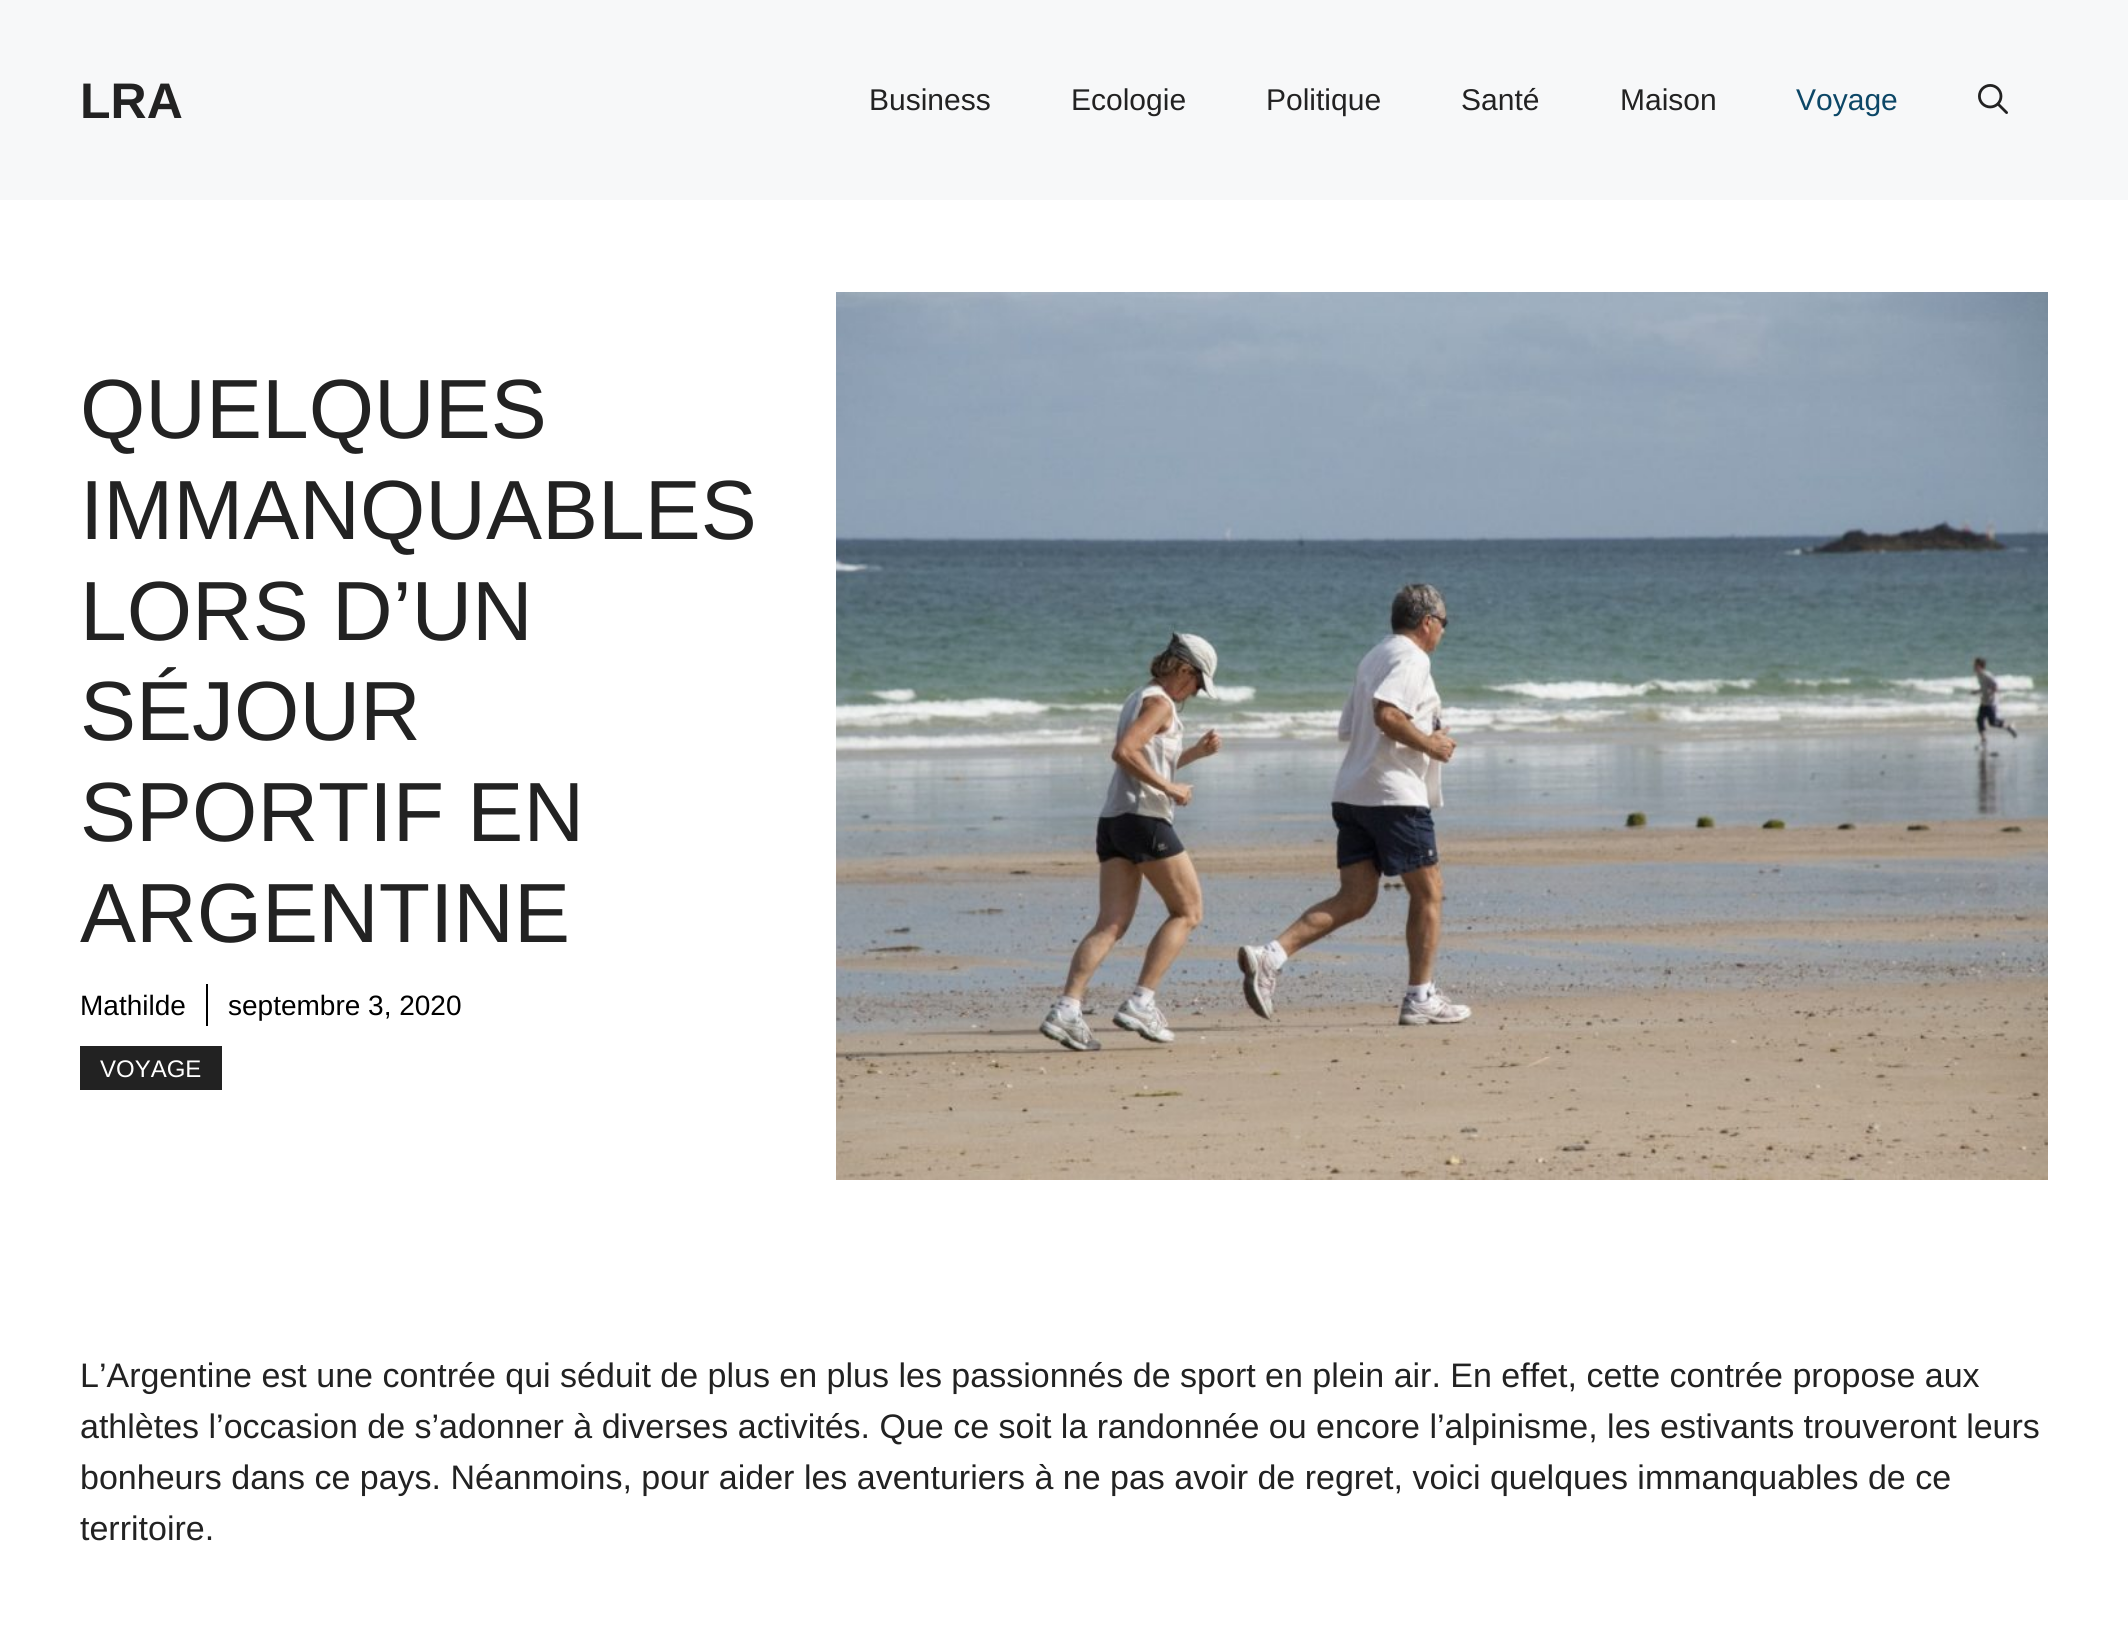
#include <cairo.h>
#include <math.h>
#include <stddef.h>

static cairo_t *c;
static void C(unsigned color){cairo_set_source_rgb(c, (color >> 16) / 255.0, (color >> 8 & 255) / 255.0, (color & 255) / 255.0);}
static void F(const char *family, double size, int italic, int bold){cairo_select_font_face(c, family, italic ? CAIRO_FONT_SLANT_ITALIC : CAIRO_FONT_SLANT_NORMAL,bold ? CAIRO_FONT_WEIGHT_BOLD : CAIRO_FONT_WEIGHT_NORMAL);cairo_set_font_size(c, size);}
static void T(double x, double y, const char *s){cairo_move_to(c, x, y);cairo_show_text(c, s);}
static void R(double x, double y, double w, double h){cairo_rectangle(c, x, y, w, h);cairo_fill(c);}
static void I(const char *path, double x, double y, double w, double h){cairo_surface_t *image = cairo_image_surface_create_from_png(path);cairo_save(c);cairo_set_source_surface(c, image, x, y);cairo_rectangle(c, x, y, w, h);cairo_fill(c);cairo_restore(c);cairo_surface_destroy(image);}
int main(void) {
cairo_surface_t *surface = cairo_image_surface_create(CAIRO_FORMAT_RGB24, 2128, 1638);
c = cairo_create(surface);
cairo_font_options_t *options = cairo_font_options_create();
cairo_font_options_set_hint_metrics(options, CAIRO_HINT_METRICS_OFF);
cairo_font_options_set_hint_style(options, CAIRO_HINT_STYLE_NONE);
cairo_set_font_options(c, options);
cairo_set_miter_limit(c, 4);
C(0xffffff);
cairo_paint(c);
C(0xf7f8f9);
R(0,0,2128,200);
F("Liberation Sans",50,0,1);
C(0x222222);
T(80,118,"LRA");
F("Liberation Sans",30,0,0);
T(869,110,"Business");
T(1071,110,"Ecologie");
T(1266,110,"Politique");
T(1461,110,"Santé");
T(1620,110,"Maison");
C(0x0c4767);
T(1796,110,"Voyage");
I("1.png",1978,84,30,30);
F("Liberation Sans",84,0,0);
C(0x222222);
T(80,438,"QUELQUES");
T(80,539,"IMMANQUABLES");
T(80,640,"LORS D’UN");
T(80,740,"SÉJOUR");
T(80,841,"SPORTIF EN");
T(80,942,"ARGENTINE");
C(0x000000);
R(206,984,2,42);
F("Liberation Sans",28,0,0);
T(80,1015,"Mathilde");
T(228,1015,"septembre 3, 2020");
C(0x222222);
R(80,1046,142,44);
F("Liberation Sans",24,0,0);
C(0xffffff);
T(100,1077,"VOYAGE");
I("2.png",836,292,1212,888);
F("Liberation Sans",34,0,0);
C(0x222222);
T(80,1387,"L’Argentine est une contrée qui séduit de plus en plus les passionnés de sport en plein air. En effet, cette contrée propose aux");
T(80,1438,"athlètes l’occasion de s’adonner à diverses activités. Que ce soit la randonnée ou encore l’alpinisme, les estivants trouveront leurs");
T(80,1489,"bonheurs dans ce pays. Néanmoins, pour aider les aventuriers à ne pas avoir de regret, voici quelques immanquables de ce");
T(80,1540,"territoire.");
cairo_surface_write_to_png(surface, "o.png");
cairo_font_options_destroy(options);
cairo_destroy(c);
cairo_surface_destroy(surface);
return 0;
}
